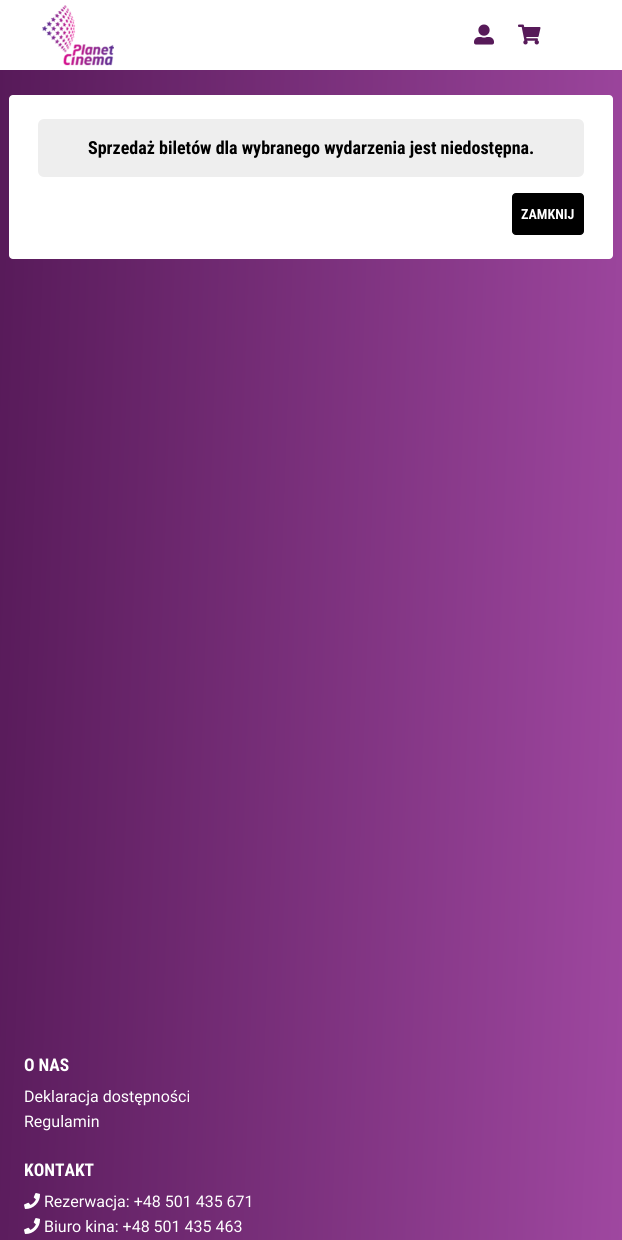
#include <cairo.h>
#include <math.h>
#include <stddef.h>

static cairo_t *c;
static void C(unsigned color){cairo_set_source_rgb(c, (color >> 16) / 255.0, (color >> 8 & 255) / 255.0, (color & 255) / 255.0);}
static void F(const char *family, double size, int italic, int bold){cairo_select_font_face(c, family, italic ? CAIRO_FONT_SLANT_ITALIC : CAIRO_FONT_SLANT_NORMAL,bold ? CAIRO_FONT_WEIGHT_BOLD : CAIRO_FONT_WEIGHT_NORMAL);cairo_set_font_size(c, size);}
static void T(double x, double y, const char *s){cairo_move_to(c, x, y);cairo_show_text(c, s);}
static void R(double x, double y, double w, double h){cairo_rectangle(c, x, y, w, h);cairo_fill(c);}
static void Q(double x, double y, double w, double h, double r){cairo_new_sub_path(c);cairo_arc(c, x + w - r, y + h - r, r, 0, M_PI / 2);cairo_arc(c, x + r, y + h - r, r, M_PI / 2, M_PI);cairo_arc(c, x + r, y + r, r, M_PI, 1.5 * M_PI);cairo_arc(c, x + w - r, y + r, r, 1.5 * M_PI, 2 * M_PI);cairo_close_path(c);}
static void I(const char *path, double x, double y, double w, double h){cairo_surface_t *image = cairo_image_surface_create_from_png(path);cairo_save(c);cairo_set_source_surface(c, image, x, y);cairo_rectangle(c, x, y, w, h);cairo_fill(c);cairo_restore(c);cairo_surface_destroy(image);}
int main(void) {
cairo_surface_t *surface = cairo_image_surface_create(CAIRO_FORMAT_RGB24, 622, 1240);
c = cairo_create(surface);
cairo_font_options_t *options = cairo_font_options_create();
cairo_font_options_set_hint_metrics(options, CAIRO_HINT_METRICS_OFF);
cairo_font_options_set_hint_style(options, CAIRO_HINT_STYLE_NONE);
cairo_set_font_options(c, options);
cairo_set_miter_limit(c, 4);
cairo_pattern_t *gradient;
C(0xffffff);
cairo_paint(c);
gradient = cairo_pattern_create_linear(-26,754,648,778);
cairo_pattern_add_color_stop_rgba(gradient,0,0.341,0.102,0.349,1);
cairo_pattern_add_color_stop_rgba(gradient,1,0.627,0.282,0.631,1);
cairo_set_source(c,gradient);
cairo_pattern_destroy(gradient);
R(0,70,622,1170);
I("1.png",42,5,72,61);
I("2.png",474,24,20,21);
I("3.png",518,24,23,21);
C(0xffffff);
Q(9,95,604,164,4);
cairo_fill(c);
C(0xeeeeee);
Q(39,120,544,56,5);
cairo_fill_preserve(c);
cairo_stroke(c);
F("Roboto Condensed",18,0,1);
C(0x000000);
T(88,154,"Sprzedaż biletów dla wybranego wydarzenia jest niedostępna.");
Q(512.5,193.5,71,41,3.5);
cairo_fill_preserve(c);
cairo_set_line_width(c,1);
cairo_stroke(c);
F("Roboto Condensed",14,0,1);
C(0xffffff);
T(521,219,"ZAMKNIJ");
F("Roboto Condensed",17.5,0,1);
T(24,1071,"O NAS");
F("Roboto",16,0,0);
T(24,1102,"Deklaracja dostępności");
T(24,1127,"Regulamin");
F("Roboto Condensed",17.5,0,1);
T(24,1176,"KONTAKT");
I("4.png",24,1193,16,16);
F("Roboto",16,0,0);
T(44,1207,"Rezerwacja: +48 501 435 671");
I("5.png",24,1218,16,16);
T(44,1232,"Biuro kina: +48 501 435 463");
cairo_surface_write_to_png(surface, "o.png");
cairo_font_options_destroy(options);
cairo_destroy(c);
cairo_surface_destroy(surface);
return 0;
}
